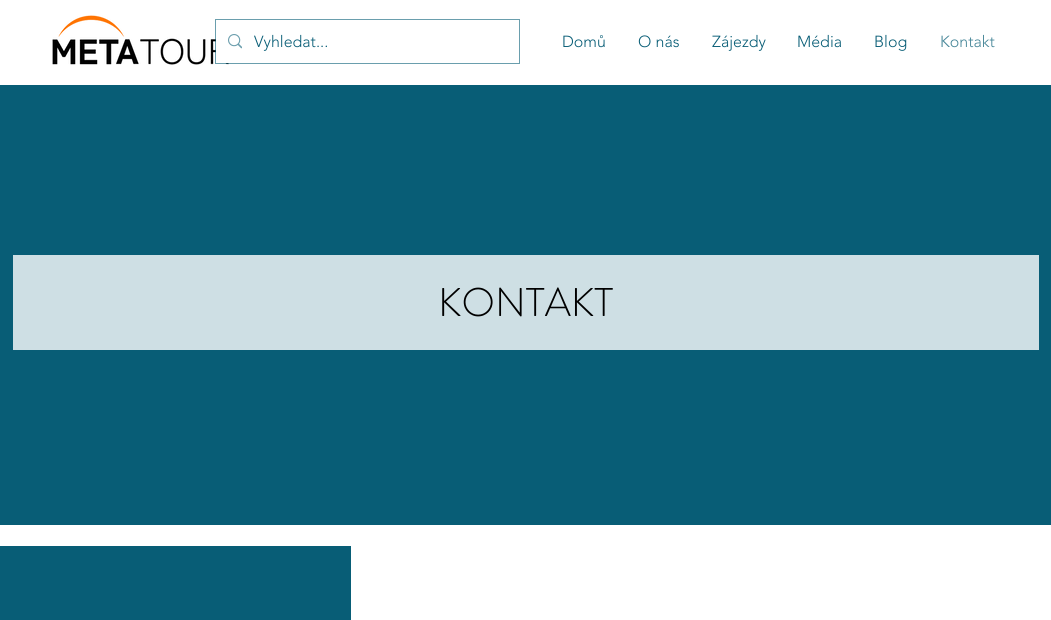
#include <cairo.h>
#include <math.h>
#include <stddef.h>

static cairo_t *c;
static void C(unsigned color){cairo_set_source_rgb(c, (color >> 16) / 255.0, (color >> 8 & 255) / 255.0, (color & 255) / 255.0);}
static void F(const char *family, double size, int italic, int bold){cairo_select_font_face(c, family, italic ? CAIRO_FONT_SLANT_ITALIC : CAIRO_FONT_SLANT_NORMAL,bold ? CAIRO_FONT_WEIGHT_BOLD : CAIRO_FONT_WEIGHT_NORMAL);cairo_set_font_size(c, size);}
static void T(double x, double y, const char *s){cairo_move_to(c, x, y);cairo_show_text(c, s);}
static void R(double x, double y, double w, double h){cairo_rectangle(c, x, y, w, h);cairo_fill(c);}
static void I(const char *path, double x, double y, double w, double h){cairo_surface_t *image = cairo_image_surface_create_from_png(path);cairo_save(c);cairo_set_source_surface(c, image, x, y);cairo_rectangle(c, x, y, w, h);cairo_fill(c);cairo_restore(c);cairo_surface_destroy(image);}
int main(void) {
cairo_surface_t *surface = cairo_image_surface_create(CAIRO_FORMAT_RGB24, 1051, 620);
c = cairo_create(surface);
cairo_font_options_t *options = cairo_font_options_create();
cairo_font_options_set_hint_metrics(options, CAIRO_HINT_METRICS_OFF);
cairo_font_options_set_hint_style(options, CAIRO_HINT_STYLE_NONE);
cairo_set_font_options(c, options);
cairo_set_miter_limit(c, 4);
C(0xffffff);
cairo_paint(c);
I("1.png",52,15,177,50);
cairo_rectangle(c,215.5,19.5,304,44);
cairo_set_source_rgba(c,0.031,0.365,0.463,0.6);
cairo_set_line_width(c,1);
cairo_stroke(c);
C(0xffffff);
R(216,37,13,26);
I("2.png",228,34,14,15);
F("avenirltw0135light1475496 Light",16,0,0);
C(0x085d76);
T(254,47,"Vyhledat...");
T(562,47,"Domů");
T(638,47,"O nás");
T(712,47,"Zájezdy");
T(797,47,"Média");
T(874,47,"Blog");
C(0x468698);
T(940,47,"Kontakt");
C(0x085d76);
R(0,85,1051,440);
C(0xcedfe4);
R(13,255,1026,95);
F("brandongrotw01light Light",40,0,0);
C(0x000000);
T(438,316,"KONTAKT");
C(0x085d76);
R(0,546,351,74);
cairo_surface_write_to_png(surface, "o.png");
cairo_font_options_destroy(options);
cairo_destroy(c);
cairo_surface_destroy(surface);
return 0;
}
